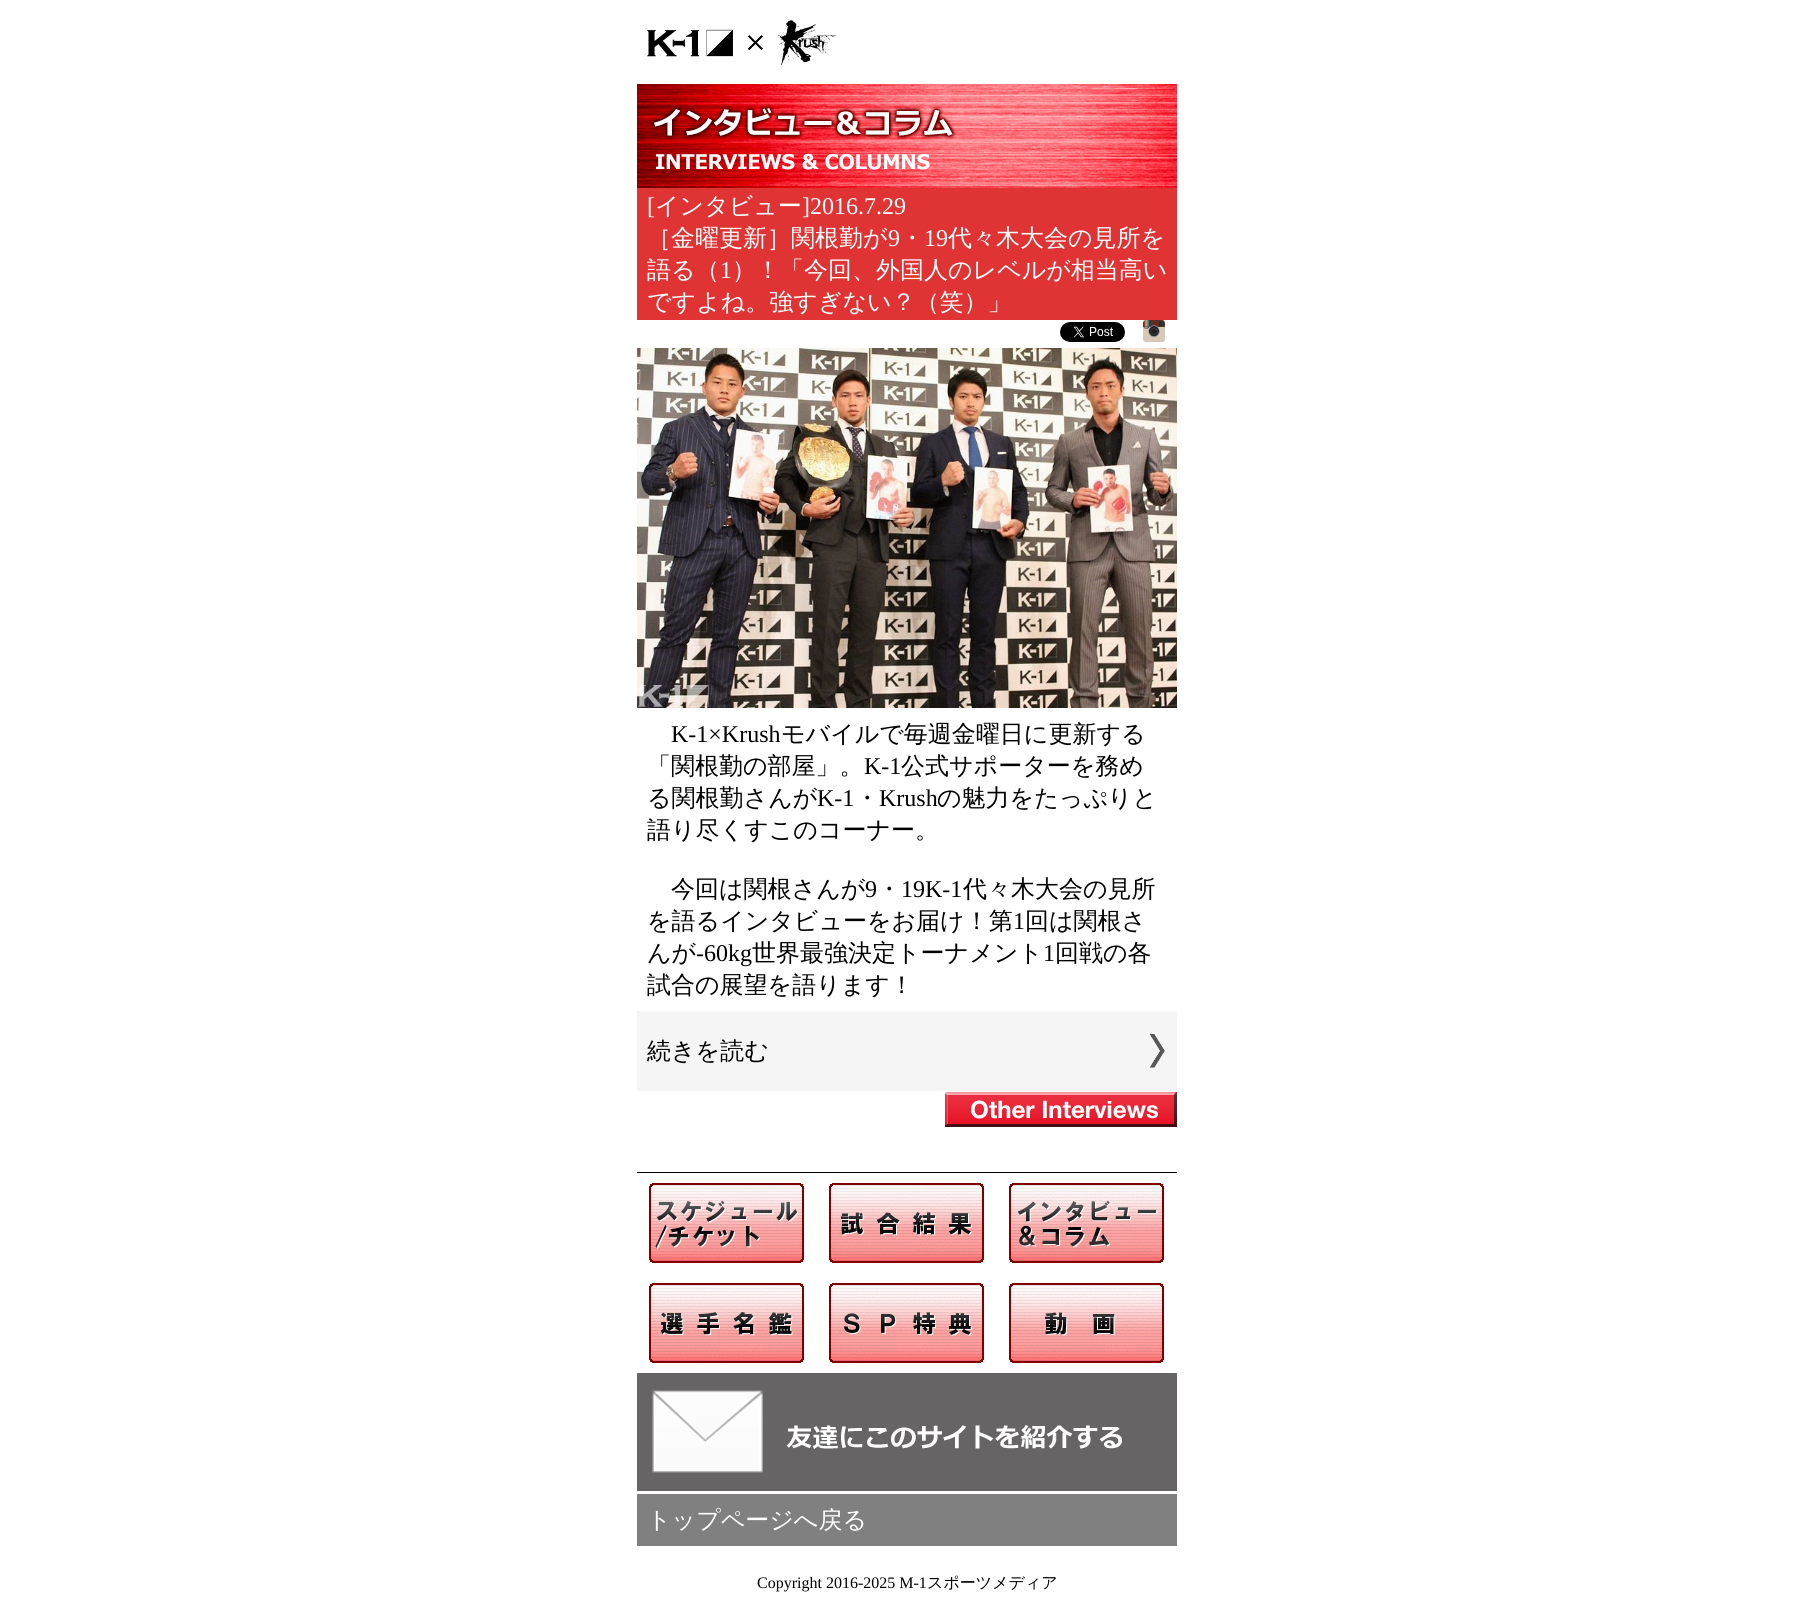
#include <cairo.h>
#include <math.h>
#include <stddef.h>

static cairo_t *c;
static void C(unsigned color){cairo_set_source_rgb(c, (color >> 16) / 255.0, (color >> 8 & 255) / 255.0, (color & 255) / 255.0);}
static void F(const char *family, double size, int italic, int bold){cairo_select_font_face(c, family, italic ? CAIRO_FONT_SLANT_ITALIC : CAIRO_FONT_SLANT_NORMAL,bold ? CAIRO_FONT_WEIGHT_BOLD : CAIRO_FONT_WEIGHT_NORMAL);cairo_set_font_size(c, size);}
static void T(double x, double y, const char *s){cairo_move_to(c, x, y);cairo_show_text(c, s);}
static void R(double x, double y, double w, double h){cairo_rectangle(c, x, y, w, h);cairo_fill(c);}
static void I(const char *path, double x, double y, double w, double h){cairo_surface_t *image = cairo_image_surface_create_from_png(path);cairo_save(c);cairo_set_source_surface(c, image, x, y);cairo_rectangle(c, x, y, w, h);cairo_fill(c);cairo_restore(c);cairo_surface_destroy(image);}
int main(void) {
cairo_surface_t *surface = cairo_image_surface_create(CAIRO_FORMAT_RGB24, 1814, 1621);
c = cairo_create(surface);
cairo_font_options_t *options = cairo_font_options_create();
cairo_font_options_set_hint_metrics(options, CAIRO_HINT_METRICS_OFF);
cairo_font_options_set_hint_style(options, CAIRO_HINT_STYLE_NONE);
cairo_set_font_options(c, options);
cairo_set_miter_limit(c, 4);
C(0xffffff);
cairo_paint(c);
I("1.png",647,20,190,45);
I("2.png",637,84,540,104);
C(0xe03333);
R(637,188,540,132);
F("Liberation Serif",24,0,0);
C(0xffffff);
T(647,214,"[");
F("WenQuanYi Zen Hei Medium",24,0,0);
T(655,214,"インタビュー");
F("Liberation Serif",24,0,0);
T(802,214,"]2016.7.29");
F("WenQuanYi Zen Hei Medium",24,0,0);
T(647,246,"［金曜更新］関根勤が");
F("Liberation Serif",24,0,0);
T(888,246,"9");
F("WenQuanYi Zen Hei Medium",24,0,0);
T(900,246,"・");
F("Liberation Serif",24,0,0);
T(924,246,"19");
F("WenQuanYi Zen Hei Medium",24,0,0);
T(948,246,"代々木大会の見所を");
T(647,278,"語る（");
F("Liberation Serif",24,0,0);
T(720,278,"1");
F("WenQuanYi Zen Hei Medium",24,0,0);
T(732,278,"）！「今回、外国人のレベルが相当高い");
T(647,310,"ですよね。強すぎない？（笑）」");
I("3.png",1060,322,65,20);
I("4.png",1143,320,22,22);
I("5.png",637,348,540,360);
F("Liberation Serif",24,0,0);
C(0x000000);
T(671,742,"K-1×Krush");
F("WenQuanYi Zen Hei Medium",24,0,0);
T(781,742,"モバイルで毎週金曜日に更新する");
T(647,774,"「関根勤の部屋」。");
F("Liberation Serif",24,0,0);
T(864,774,"K-1");
F("WenQuanYi Zen Hei Medium",24,0,0);
T(901,774,"公式サポーターを務め");
T(647,806,"る関根勤さんが");
F("Liberation Serif",24,0,0);
T(817,806,"K-1");
F("WenQuanYi Zen Hei Medium",24,0,0);
T(855,806,"・");
F("Liberation Serif",24,0,0);
T(879,806,"Krush");
F("WenQuanYi Zen Hei Medium",24,0,0);
T(937,806,"の魅力をたっぷりと");
T(647,838,"語り尽くすこのコーナー。");
T(671,897,"今回は関根さんが");
F("Liberation Serif",24,0,0);
T(865,897,"9");
F("WenQuanYi Zen Hei Medium",24,0,0);
T(877,897,"・");
F("Liberation Serif",24,0,0);
T(901,897,"19K-1");
F("WenQuanYi Zen Hei Medium",24,0,0);
T(963,897,"代々木大会の見所");
T(647,929,"を語るインタビューをお届け！第");
F("Liberation Serif",24,0,0);
T(1013,929,"1");
F("WenQuanYi Zen Hei Medium",24,0,0);
T(1025,929,"回は関根さ");
T(647,961,"んが");
F("Liberation Serif",24,0,0);
T(696,961,"-60kg");
F("WenQuanYi Zen Hei Medium",24,0,0);
T(752,961,"世界最強決定トーナメント");
F("Liberation Serif",24,0,0);
T(1043,961,"1");
F("WenQuanYi Zen Hei Medium",24,0,0);
T(1055,961,"回戦の各");
T(647,993,"試合の展望を語ります！");
C(0xf5f5f5);
R(637,1011,540,80);
C(0x000000);
T(647,1059,"続きを読む");
I("6.png",1149,1034,16,34);
R(637,1172,540,1);
I("7.png",945,1092,232,35);
I("8.png",649,1183,155,80);
I("9.png",829,1183,155,80);
I("10.png",1009,1183,155,80);
I("11.png",649,1283,155,80);
I("12.png",829,1283,155,80);
I("13.png",1009,1283,155,80);
I("14.png",637,1373,540,118);
C(0x808080);
R(637,1494,540,52);
C(0xffffff);
T(647,1528,"トップページへ戻る");
F("Liberation Serif",16,0,0);
C(0x000000);
T(757,1588,"Copyright 2016-2025 M-1");
F("WenQuanYi Zen Hei Medium",16,0,0);
T(927,1588,"スポーツメディア");
cairo_surface_write_to_png(surface, "o.png");
cairo_font_options_destroy(options);
cairo_destroy(c);
cairo_surface_destroy(surface);
return 0;
}
